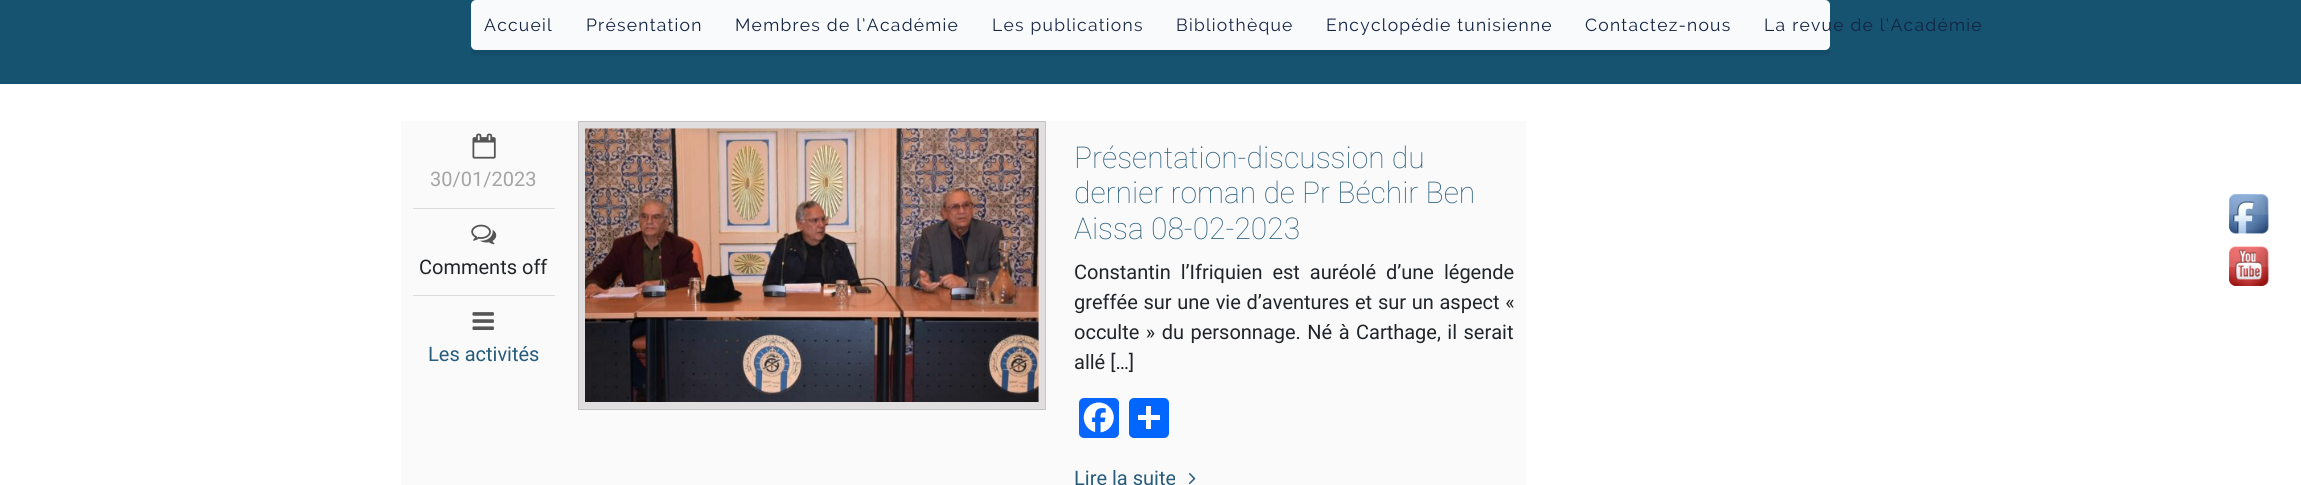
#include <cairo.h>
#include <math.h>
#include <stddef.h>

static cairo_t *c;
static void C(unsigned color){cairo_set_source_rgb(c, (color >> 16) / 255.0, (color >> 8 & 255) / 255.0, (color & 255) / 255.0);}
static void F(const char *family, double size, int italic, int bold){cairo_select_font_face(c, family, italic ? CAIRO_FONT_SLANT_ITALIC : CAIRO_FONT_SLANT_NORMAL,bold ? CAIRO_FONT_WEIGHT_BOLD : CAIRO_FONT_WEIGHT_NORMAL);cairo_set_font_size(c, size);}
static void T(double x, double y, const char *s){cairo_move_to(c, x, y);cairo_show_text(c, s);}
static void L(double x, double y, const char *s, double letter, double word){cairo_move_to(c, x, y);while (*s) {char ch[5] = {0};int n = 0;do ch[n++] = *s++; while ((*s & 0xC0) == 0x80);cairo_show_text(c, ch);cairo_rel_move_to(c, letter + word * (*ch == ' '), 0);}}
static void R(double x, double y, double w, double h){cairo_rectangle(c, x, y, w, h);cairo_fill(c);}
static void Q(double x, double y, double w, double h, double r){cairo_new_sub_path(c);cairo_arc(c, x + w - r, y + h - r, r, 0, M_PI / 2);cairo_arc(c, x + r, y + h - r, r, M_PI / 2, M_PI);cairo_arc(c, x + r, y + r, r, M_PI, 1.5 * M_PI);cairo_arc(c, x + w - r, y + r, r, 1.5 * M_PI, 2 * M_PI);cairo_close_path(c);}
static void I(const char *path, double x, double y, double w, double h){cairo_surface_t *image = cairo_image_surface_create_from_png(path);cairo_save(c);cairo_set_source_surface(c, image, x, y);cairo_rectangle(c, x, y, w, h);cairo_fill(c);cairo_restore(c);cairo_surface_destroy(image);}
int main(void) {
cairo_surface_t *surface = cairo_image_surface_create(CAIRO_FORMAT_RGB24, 2301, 485);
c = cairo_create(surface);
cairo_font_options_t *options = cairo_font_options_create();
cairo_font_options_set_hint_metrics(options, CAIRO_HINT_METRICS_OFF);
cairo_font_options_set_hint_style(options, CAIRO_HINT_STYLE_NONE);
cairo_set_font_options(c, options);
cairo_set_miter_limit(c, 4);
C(0xffffff);
cairo_paint(c);
C(0x165371);
R(0,0,2301,84);
cairo_set_source_rgba(c,1,1,1,0.97);
Q(471,0,1359,50,5);
cairo_fill(c);
F("Raleway",17.5,0,0);
C(0x132342);
L(484,31,"Accueil",1.25,0);
L(586,31,"Présentation",1.25,0);
L(735,31,"Membres de l’Académie",1.25,0);
C(0x1a2847);
L(992,31,"Les publications",1.25,0);
L(1176,31,"Bibliothèque",1.25,0);
C(0x132342);
L(1326,31,"Encyclopédie tunisienne",1.25,0);
L(1585,31,"Contactez-nous",1.25,0);
L(1764,31,"La revue de l’Académie",1.25,0);
I("1.png",471,50,1359,6);
C(0xfafafa);
R(401,121,1125,364);
C(0xdcdcdc);
R(413,208,142,1);
I("2.png",472,133,24,26);
F("Roboto",20,0,0);
C(0xa5a5a5);
T(430,186,"30/01/2023");
C(0xdcdcdc);
R(413,295,142,1);
I("3.png",471,224,26,21);
C(0x212529);
T(419,274,"Comments off");
I("4.png",472,312,22,18);
C(0x275c7d);
T(428,361,"Les activités");
C(0xe0dede);
cairo_rectangle(c,578.5,121.5,467,288);
cairo_fill_preserve(c);
C(0xc5c3c3);
cairo_set_line_width(c,1);
cairo_stroke(c);
I("5.png",585,128,454,274);
F("Roboto Thin",30,0,0);
C(0x275c7d);
T(1074,168,"Présentation-discussion du");
T(1074,203,"dernier roman de Pr Béchir Ben");
T(1074,239,"Aissa 08-02-2023");
F("Roboto",20,0,0);
C(0x212529);
L(1074,279,"Constantin l’Ifriquien est auréolé d’une légende",0,5);
L(1074,309,"greffée sur une vie d’aventures et sur un aspect «",0,.75);
L(1074,339,"occulte » du personnage. Né à Carthage, il serait",0,1.5);
T(1074,369,"allé […]");
C(0x0866ff);
Q(1079,398,40,40,5);
cairo_fill(c);
I("6.png",1083,402,31,31);
C(0x0166ff);
Q(1129,398,40,40,5);
cairo_fill(c);
C(0xffffff);
R(1146,406,5,23);
R(1138,415,22,5);
C(0x275c7d);
T(1074,485,"Lire la suite");
I("7.png",1188,473,8,12);
I("8.png",2229,194,40,40);
I("9.png",2229,246,40,40);
cairo_surface_write_to_png(surface, "o.png");
cairo_font_options_destroy(options);
cairo_destroy(c);
cairo_surface_destroy(surface);
return 0;
}
